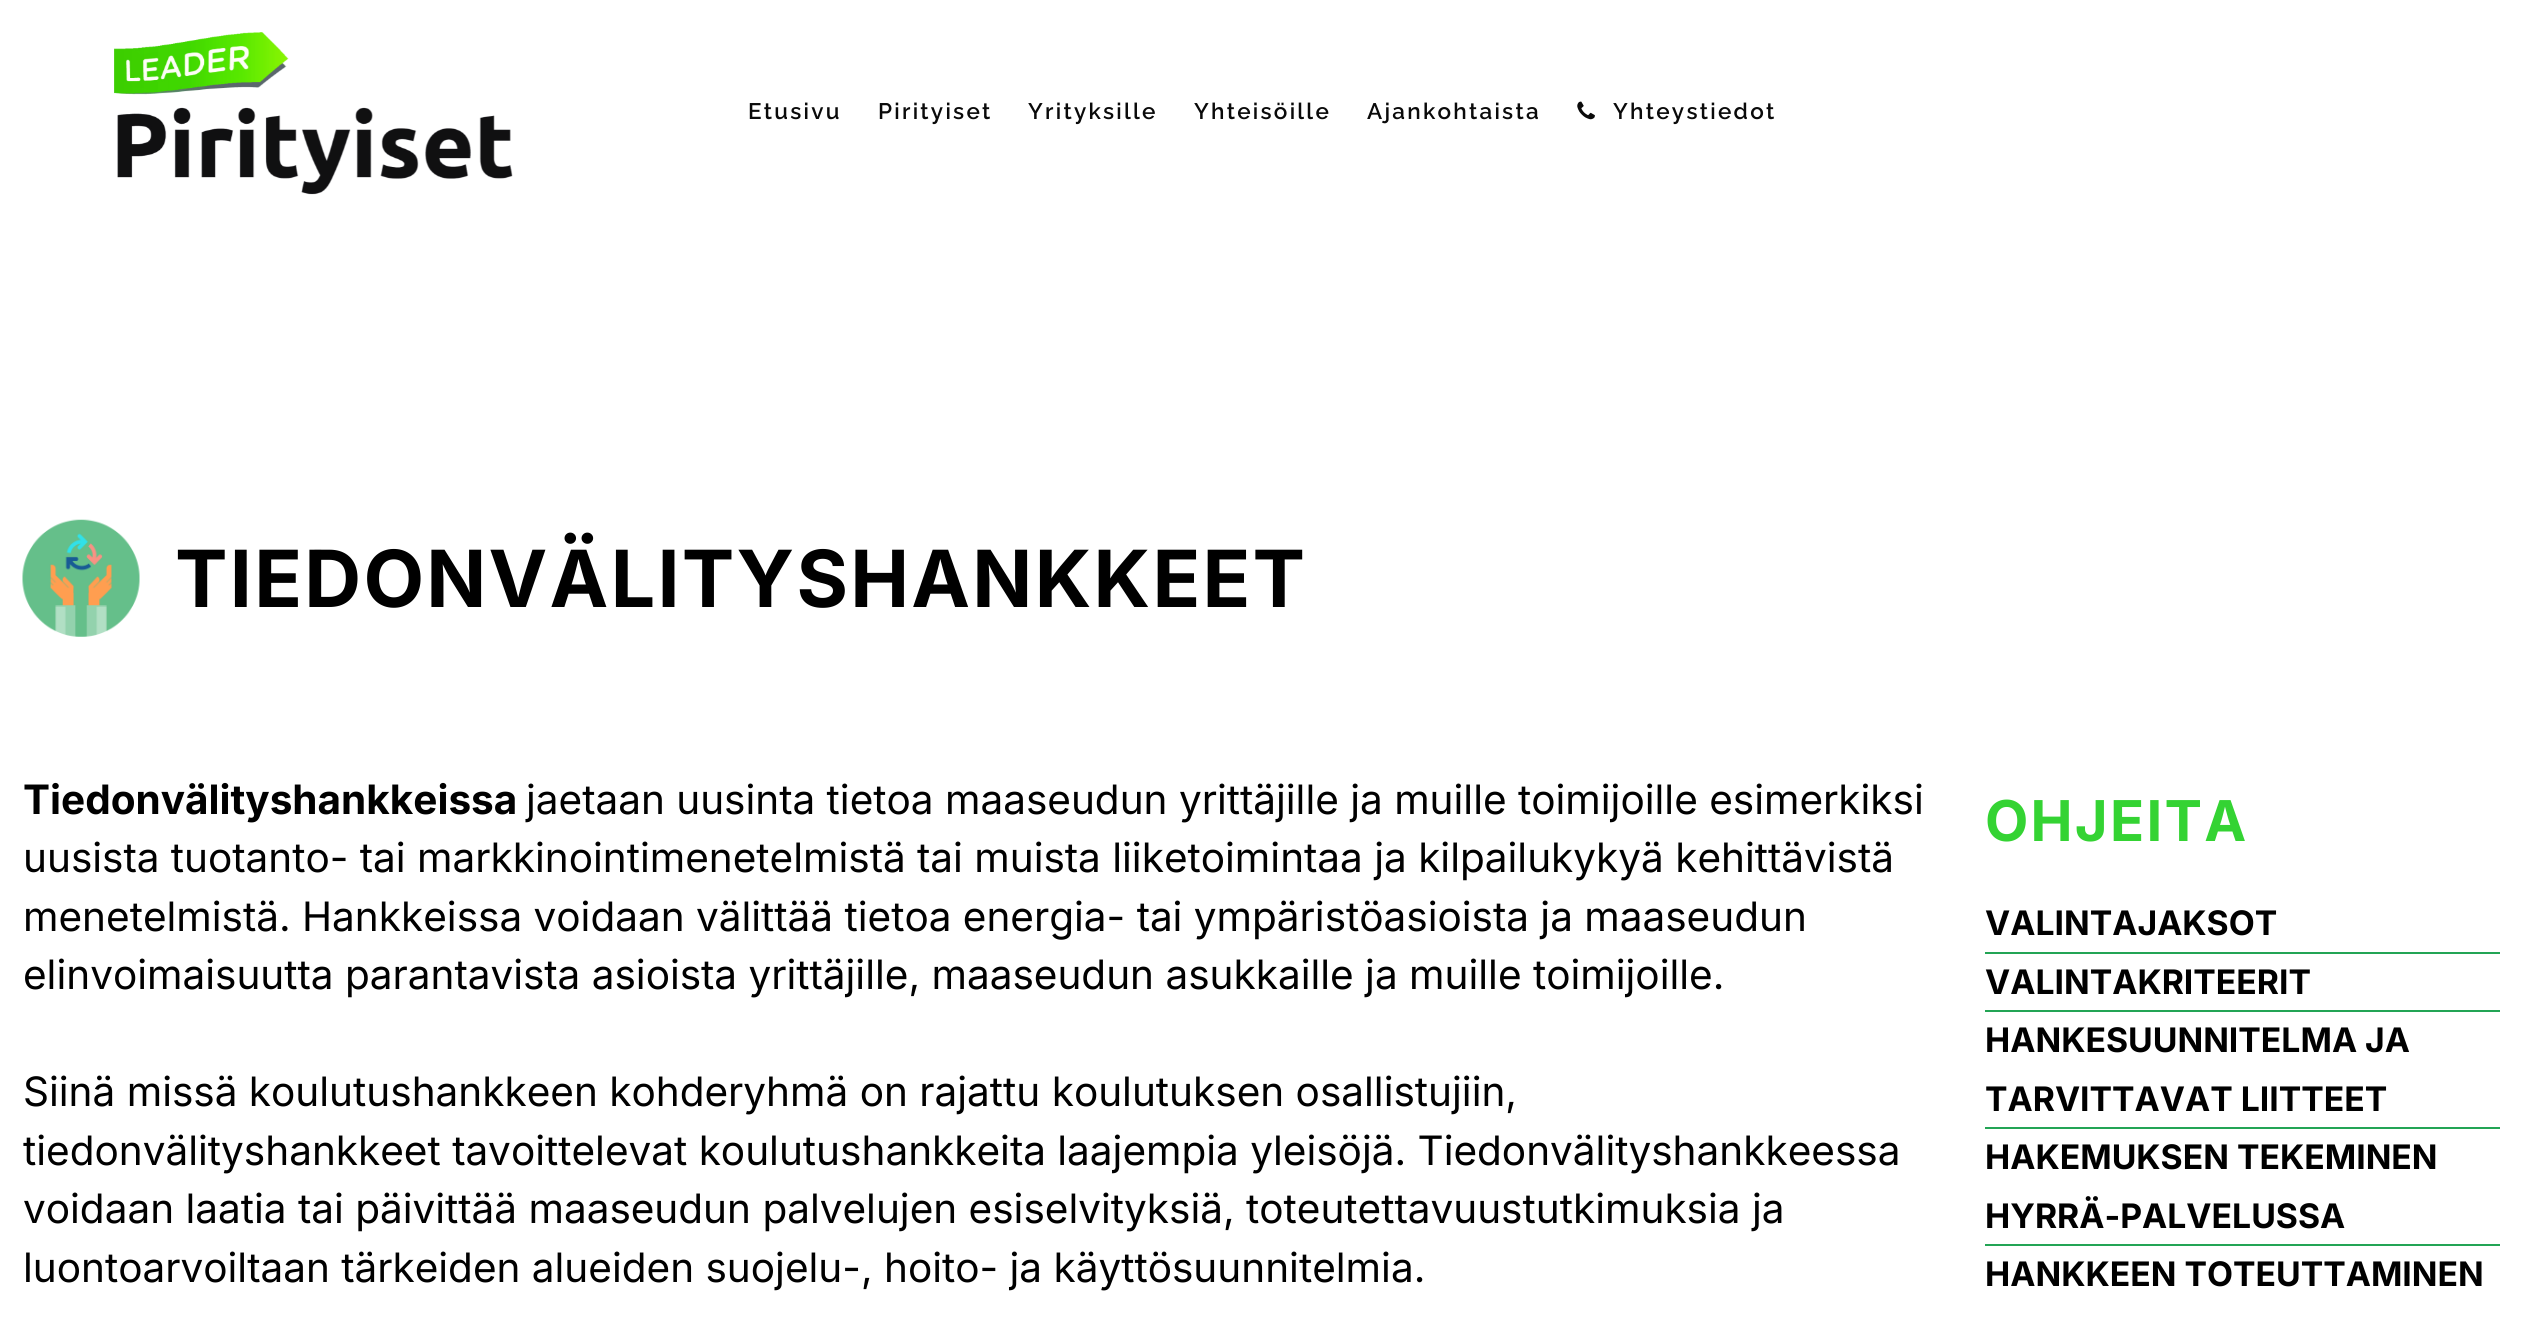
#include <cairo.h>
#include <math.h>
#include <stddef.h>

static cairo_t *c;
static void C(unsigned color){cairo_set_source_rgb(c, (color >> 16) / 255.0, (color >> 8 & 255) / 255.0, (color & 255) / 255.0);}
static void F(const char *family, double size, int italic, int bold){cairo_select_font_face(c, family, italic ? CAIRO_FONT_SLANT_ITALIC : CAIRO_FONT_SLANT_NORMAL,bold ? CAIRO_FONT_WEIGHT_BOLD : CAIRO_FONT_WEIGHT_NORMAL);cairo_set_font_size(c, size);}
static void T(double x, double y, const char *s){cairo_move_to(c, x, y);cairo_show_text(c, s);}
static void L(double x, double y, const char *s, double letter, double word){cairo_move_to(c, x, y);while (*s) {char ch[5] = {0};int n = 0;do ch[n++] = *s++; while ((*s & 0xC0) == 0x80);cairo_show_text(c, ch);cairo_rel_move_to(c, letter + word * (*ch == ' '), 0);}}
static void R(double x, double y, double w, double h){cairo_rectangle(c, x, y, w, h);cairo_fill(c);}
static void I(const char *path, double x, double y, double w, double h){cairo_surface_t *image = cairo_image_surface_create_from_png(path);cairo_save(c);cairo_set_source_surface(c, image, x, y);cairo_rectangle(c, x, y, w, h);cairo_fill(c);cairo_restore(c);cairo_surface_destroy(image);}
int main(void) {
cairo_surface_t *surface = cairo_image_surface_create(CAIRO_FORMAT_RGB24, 2524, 1332);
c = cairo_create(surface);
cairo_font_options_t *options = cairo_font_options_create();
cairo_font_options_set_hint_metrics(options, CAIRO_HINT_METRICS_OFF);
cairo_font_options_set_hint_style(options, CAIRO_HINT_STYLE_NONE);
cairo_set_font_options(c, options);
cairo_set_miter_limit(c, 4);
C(0xffffff);
cairo_paint(c);
I("1.png",114,32,399,163);
F("Raleway SemiBold",22.5,0,0);
C(0x0a0a0a);
L(748,119,"Etusivu",2.25,0);
L(878,119,"Pirityiset",2.25,0);
L(1028,119,"Yrityksille",2.25,0);
L(1194,119,"Yhteisöille",2.25,0);
L(1367,119,"Ajankohtaista",2.25,0);
I("2.png",1577,101,18,19);
L(1613,119,"Yhteystiedot",2.25,0);
I("3.png",22,519,118,118);
F("Inter",78.75,0,1);
C(0x000000);
L(175,607,"TIEDONVÄLITYSHANKKEET",2.25,0);
F("Inter",40.5,0,1);
T(23,814,"Tiedonvälityshankkeissa");
F("Inter",40.5,0,0);
T(526,814,"jaetaan uusinta tietoa maaseudun yrittäjille ja muille toimijoille esimerkiksi");
T(23,872,"uusista tuotanto- tai markkinointimenetelmistä tai muista liiketoimintaa ja kilpailukykyä kehittävistä");
T(23,931,"menetelmistä. Hankkeissa voidaan välittää tietoa energia- tai ympäristöasioista ja maaseudun");
T(23,989,"elinvoimaisuutta parantavista asioista yrittäjille, maaseudun asukkaille ja muille toimijoille.");
T(23,1106,"Siinä missä koulutushankkeen kohderyhmä on rajattu koulutuksen osallistujiin,");
T(23,1165,"tiedonvälityshankkeet tavoittelevat koulutushankkeita laajempia yleisöjä. Tiedonvälityshankkeessa");
T(23,1223,"voidaan laatia tai päivittää maaseudun palvelujen esiselvityksiä, toteutettavuustutkimuksia ja");
T(23,1282,"luontoarvoiltaan tärkeiden alueiden suojelu-, hoito- ja käyttösuunnitelmia.");
F("Inter",56.25,0,1);
C(0x34d333);
L(1985,841,"OHJEITA",2.25,0);
F("Inter",33.75,0,1);
C(0x000000);
T(1985,935,"VALINTAJAKSOT");
C(0x23a455);
R(1985,952,515,2);
C(0x000000);
T(1985,994,"VALINTAKRITEERIT");
C(0x23a455);
R(1985,1010,515,2);
C(0x000000);
T(1985,1052,"HANKESUUNNITELMA JA");
T(1985,1111,"TARVITTAVAT LIITTEET");
C(0x23a455);
R(1985,1127,515,2);
C(0x000000);
T(1985,1169,"HAKEMUKSEN TEKEMINEN");
T(1985,1228,"HYRRÄ-PALVELUSSA");
C(0x23a455);
R(1985,1244,515,2);
C(0x000000);
T(1985,1286,"HANKKEEN TOTEUTTAMINEN");
cairo_surface_write_to_png(surface, "o.png");
cairo_font_options_destroy(options);
cairo_destroy(c);
cairo_surface_destroy(surface);
return 0;
}
